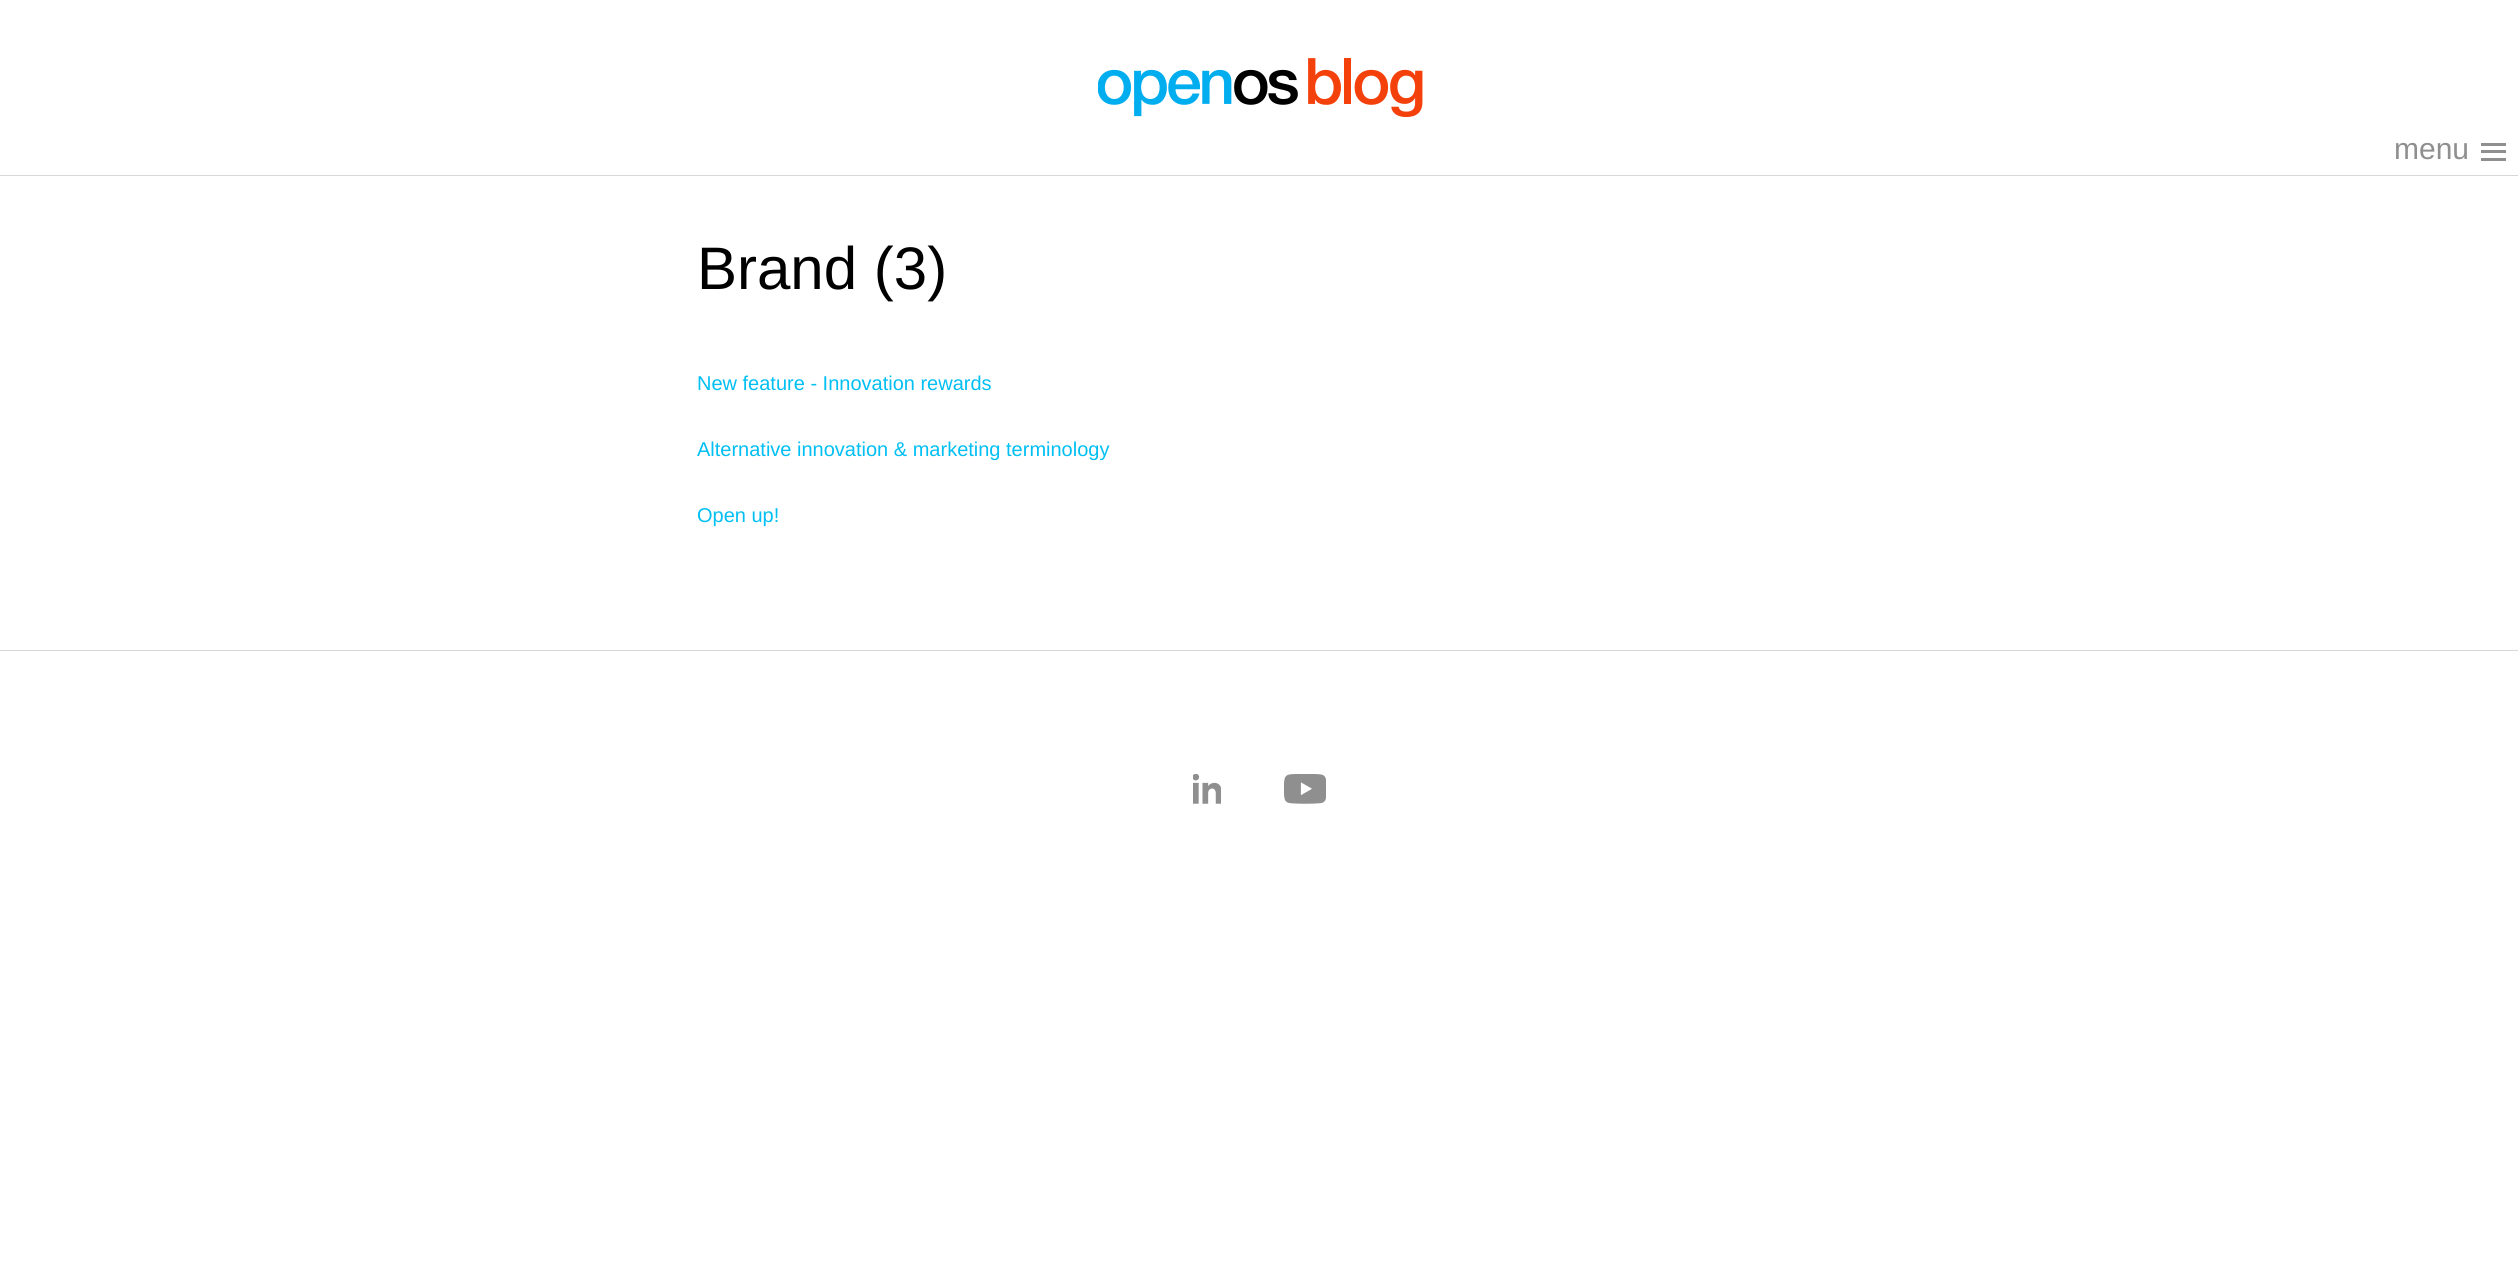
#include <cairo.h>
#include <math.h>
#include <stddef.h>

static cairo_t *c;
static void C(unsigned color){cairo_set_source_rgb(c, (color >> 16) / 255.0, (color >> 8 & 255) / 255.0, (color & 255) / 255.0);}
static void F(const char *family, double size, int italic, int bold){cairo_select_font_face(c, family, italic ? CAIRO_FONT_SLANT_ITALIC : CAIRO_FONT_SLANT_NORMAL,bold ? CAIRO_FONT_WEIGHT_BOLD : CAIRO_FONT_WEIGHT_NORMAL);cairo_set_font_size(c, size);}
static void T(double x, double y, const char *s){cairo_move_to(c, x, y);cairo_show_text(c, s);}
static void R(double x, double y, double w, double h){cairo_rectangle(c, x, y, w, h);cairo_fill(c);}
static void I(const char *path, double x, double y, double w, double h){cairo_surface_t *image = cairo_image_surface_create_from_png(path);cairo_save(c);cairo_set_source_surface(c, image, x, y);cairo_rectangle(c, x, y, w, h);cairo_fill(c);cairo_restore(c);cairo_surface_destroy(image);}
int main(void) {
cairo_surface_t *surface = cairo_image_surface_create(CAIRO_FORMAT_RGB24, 2518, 1271);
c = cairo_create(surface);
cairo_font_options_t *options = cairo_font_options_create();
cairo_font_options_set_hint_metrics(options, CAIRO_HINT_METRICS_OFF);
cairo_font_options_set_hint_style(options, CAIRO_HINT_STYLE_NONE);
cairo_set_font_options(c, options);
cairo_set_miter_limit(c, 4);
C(0xffffff);
cairo_paint(c);
C(0xd7d7d7);
R(0,175,2518,1);
I("1.png",1098,58,325,60);
F("Liberation Sans",30,0,0);
C(0x8f8f8f);
T(2394,159,"menu");
R(2481,150,25,3);
R(2481,143,25,3);
R(2481,158,25,3);
F("Liberation Sans",60,0,0);
C(0x000000);
T(697,289,"Brand (3)");
F("Liberation Sans",20,0,0);
C(0x00bff3);
T(697,390,"New feature - Innovation rewards");
T(697,456,"Alternative innovation & marketing terminology");
T(697,522,"Open up!");
C(0xd7d7d7);
R(0,650,2518,1);
I("2.png",1193,774,28,30);
I("3.png",1284,774,42,30);
cairo_surface_write_to_png(surface, "o.png");
cairo_font_options_destroy(options);
cairo_destroy(c);
cairo_surface_destroy(surface);
return 0;
}
